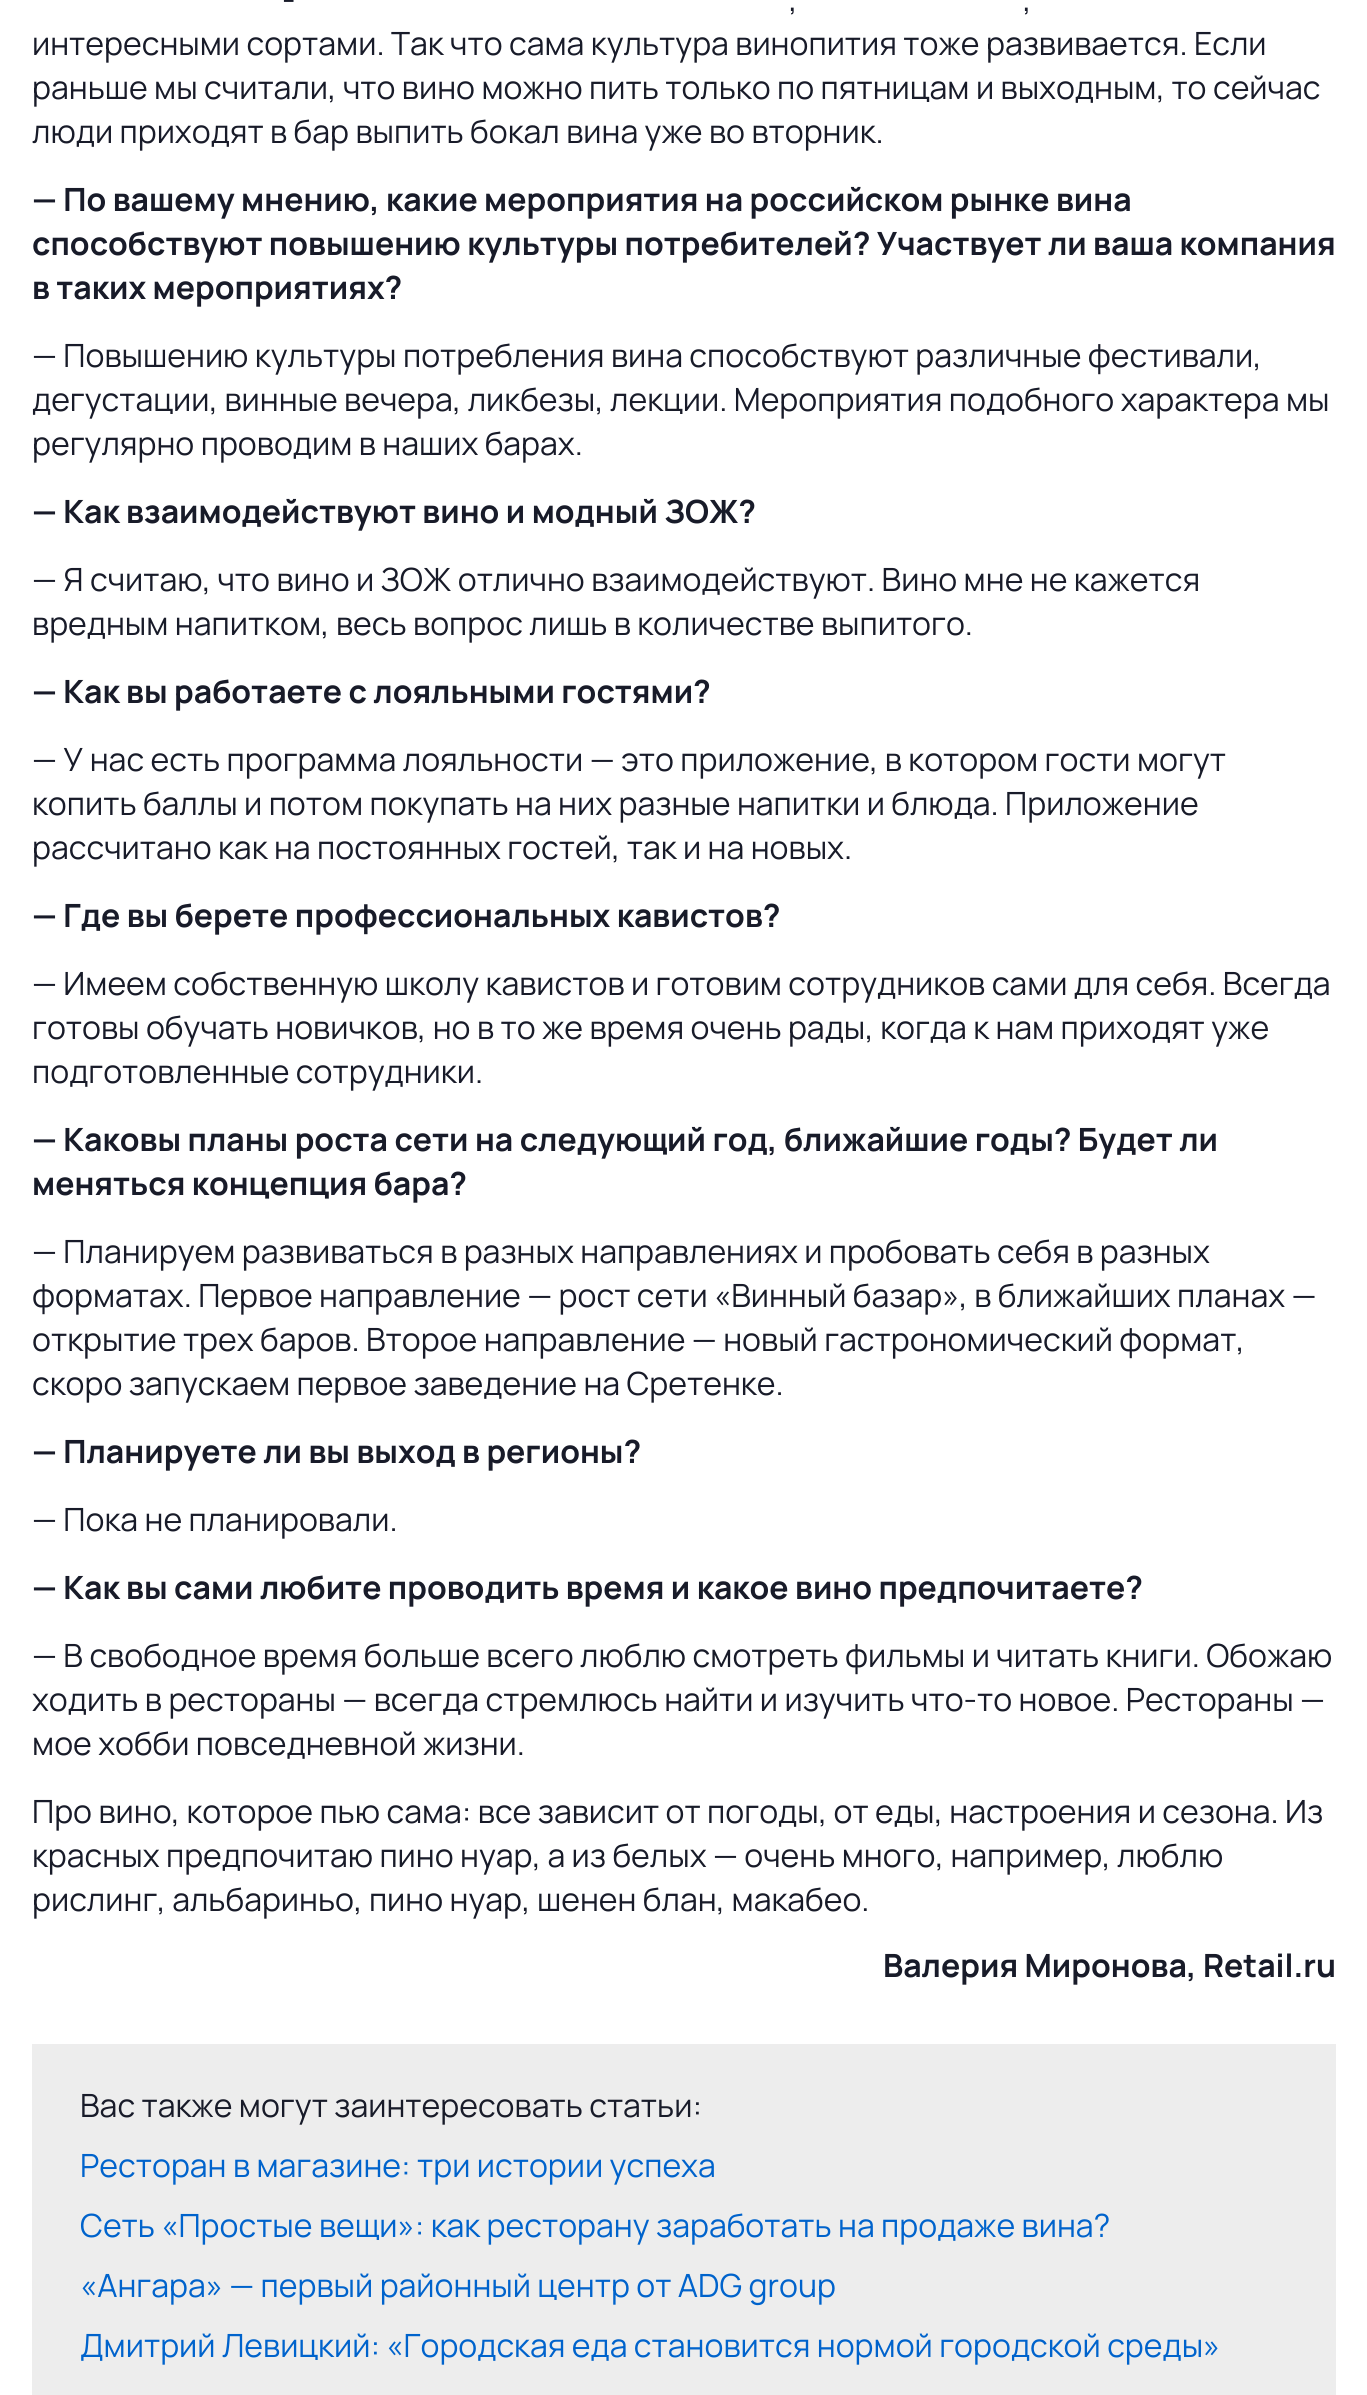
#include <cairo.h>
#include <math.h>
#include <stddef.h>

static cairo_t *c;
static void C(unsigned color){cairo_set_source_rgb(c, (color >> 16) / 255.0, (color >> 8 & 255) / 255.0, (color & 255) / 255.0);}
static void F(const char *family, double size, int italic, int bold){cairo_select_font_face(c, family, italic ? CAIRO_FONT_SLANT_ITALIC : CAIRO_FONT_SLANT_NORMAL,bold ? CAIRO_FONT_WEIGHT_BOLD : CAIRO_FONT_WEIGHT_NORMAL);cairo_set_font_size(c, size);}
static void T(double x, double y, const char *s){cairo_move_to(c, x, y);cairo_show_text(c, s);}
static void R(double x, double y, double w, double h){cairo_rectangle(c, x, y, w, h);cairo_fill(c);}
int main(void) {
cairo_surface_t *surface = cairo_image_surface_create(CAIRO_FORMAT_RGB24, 1367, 2395);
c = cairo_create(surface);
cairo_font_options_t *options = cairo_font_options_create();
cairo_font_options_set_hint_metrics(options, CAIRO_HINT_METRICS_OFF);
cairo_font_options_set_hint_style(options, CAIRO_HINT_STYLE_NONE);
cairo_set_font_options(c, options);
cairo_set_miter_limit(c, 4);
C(0xffffff);
cairo_paint(c);
F("Manrope",32,0,0);
C(0x181b29);
T(282,11,"-");
T(789,11,",");
T(1023,11,",");
T(32,55,"интересными сортами. Так что сама культура винопития тоже развивается. Если");
T(32,99,"раньше мы считали, что вино можно пить только по пятницам и выходным, то сейчас");
T(32,143,"люди приходят в бар выпить бокал вина уже во вторник.");
F("Manrope",32,0,1);
T(32,211,"— По вашему мнению, какие мероприятия на российском рынке вина");
T(32,255,"способствуют повышению культуры потребителей? Участвует ли ваша компания");
T(32,299,"в таких мероприятиях?");
F("Manrope",32,0,0);
T(32,367,"— Повышению культуры потребления вина способствуют различные фестивали,");
T(32,411,"дегустации, винные вечера, ликбезы, лекции. Мероприятия подобного характера мы");
T(32,455,"регулярно проводим в наших барах.");
F("Manrope",32,0,1);
T(32,523,"— Как взаимодействуют вино и модный ЗОЖ?");
F("Manrope",32,0,0);
T(32,591,"— Я считаю, что вино и ЗОЖ отлично взаимодействуют. Вино мне не кажется");
T(32,635,"вредным напитком, весь вопрос лишь в количестве выпитого.");
F("Manrope",32,0,1);
T(32,703,"— Как вы работаете с лояльными гостями?");
F("Manrope",32,0,0);
T(32,771,"— У нас есть программа лояльности — это приложение, в котором гости могут");
T(32,815,"копить баллы и потом покупать на них разные напитки и блюда. Приложение");
T(32,859,"рассчитано как на постоянных гостей, так и на новых.");
F("Manrope",32,0,1);
T(32,927,"— Где вы берете профессиональных кавистов?");
F("Manrope",32,0,0);
T(32,995,"— Имеем собственную школу кавистов и готовим сотрудников сами для себя. Всегда");
T(32,1039,"готовы обучать новичков, но в то же время очень рады, когда к нам приходят уже");
T(32,1083,"подготовленные сотрудники.");
F("Manrope",32,0,1);
T(32,1151,"— Каковы планы роста сети на следующий год, ближайшие годы? Будет ли");
T(32,1195,"меняться концепция бара?");
F("Manrope",32,0,0);
T(32,1263,"— Планируем развиваться в разных направлениях и пробовать себя в разных");
T(32,1307,"форматах. Первое направление — рост сети «Винный базар», в ближайших планах —");
T(32,1351,"открытие трех баров. Второе направление — новый гастрономический формат,");
T(32,1395,"скоро запускаем первое заведение на Сретенке.");
F("Manrope",32,0,1);
T(32,1463,"— Планируете ли вы выход в регионы?");
F("Manrope",32,0,0);
T(32,1531,"— Пока не планировали.");
F("Manrope",32,0,1);
T(32,1599,"— Как вы сами любите проводить время и какое вино предпочитаете?");
F("Manrope",32,0,0);
T(32,1667,"— В свободное время больше всего люблю смотреть фильмы и читать книги. Обожаю");
T(32,1711,"ходить в рестораны — всегда стремлюсь найти и изучить что-то новое. Рестораны —");
T(32,1755,"мое хобби повседневной жизни.");
T(32,1823,"Про вино, которое пью сама: все зависит от погоды, от еды, настроения и сезона. Из");
T(32,1867,"красных предпочитаю пино нуар, а из белых — очень много, например, люблю");
T(32,1911,"рислинг, альбариньо, пино нуар, шенен блан, макабео.");
F("Manrope",32,0,1);
T(883,1977,"Валерия Миронова, Retail.ru");
C(0xededed);
R(32,2044,1304,351);
F("Manrope",32,0,0);
C(0x181b29);
T(80,2117,"Вас также могут заинтересовать статьи:");
C(0x0063cc);
T(80,2177,"Ресторан в магазине: три истории успеха");
T(80,2237,"Сеть «Простые вещи»: как ресторану заработать на продаже вина?");
T(80,2297,"«Ангара» — первый районный центр от ADG group");
T(80,2357,"Дмитрий Левицкий: «Городская еда становится нормой городской среды»");
cairo_surface_write_to_png(surface, "o.png");
cairo_font_options_destroy(options);
cairo_destroy(c);
cairo_surface_destroy(surface);
return 0;
}
